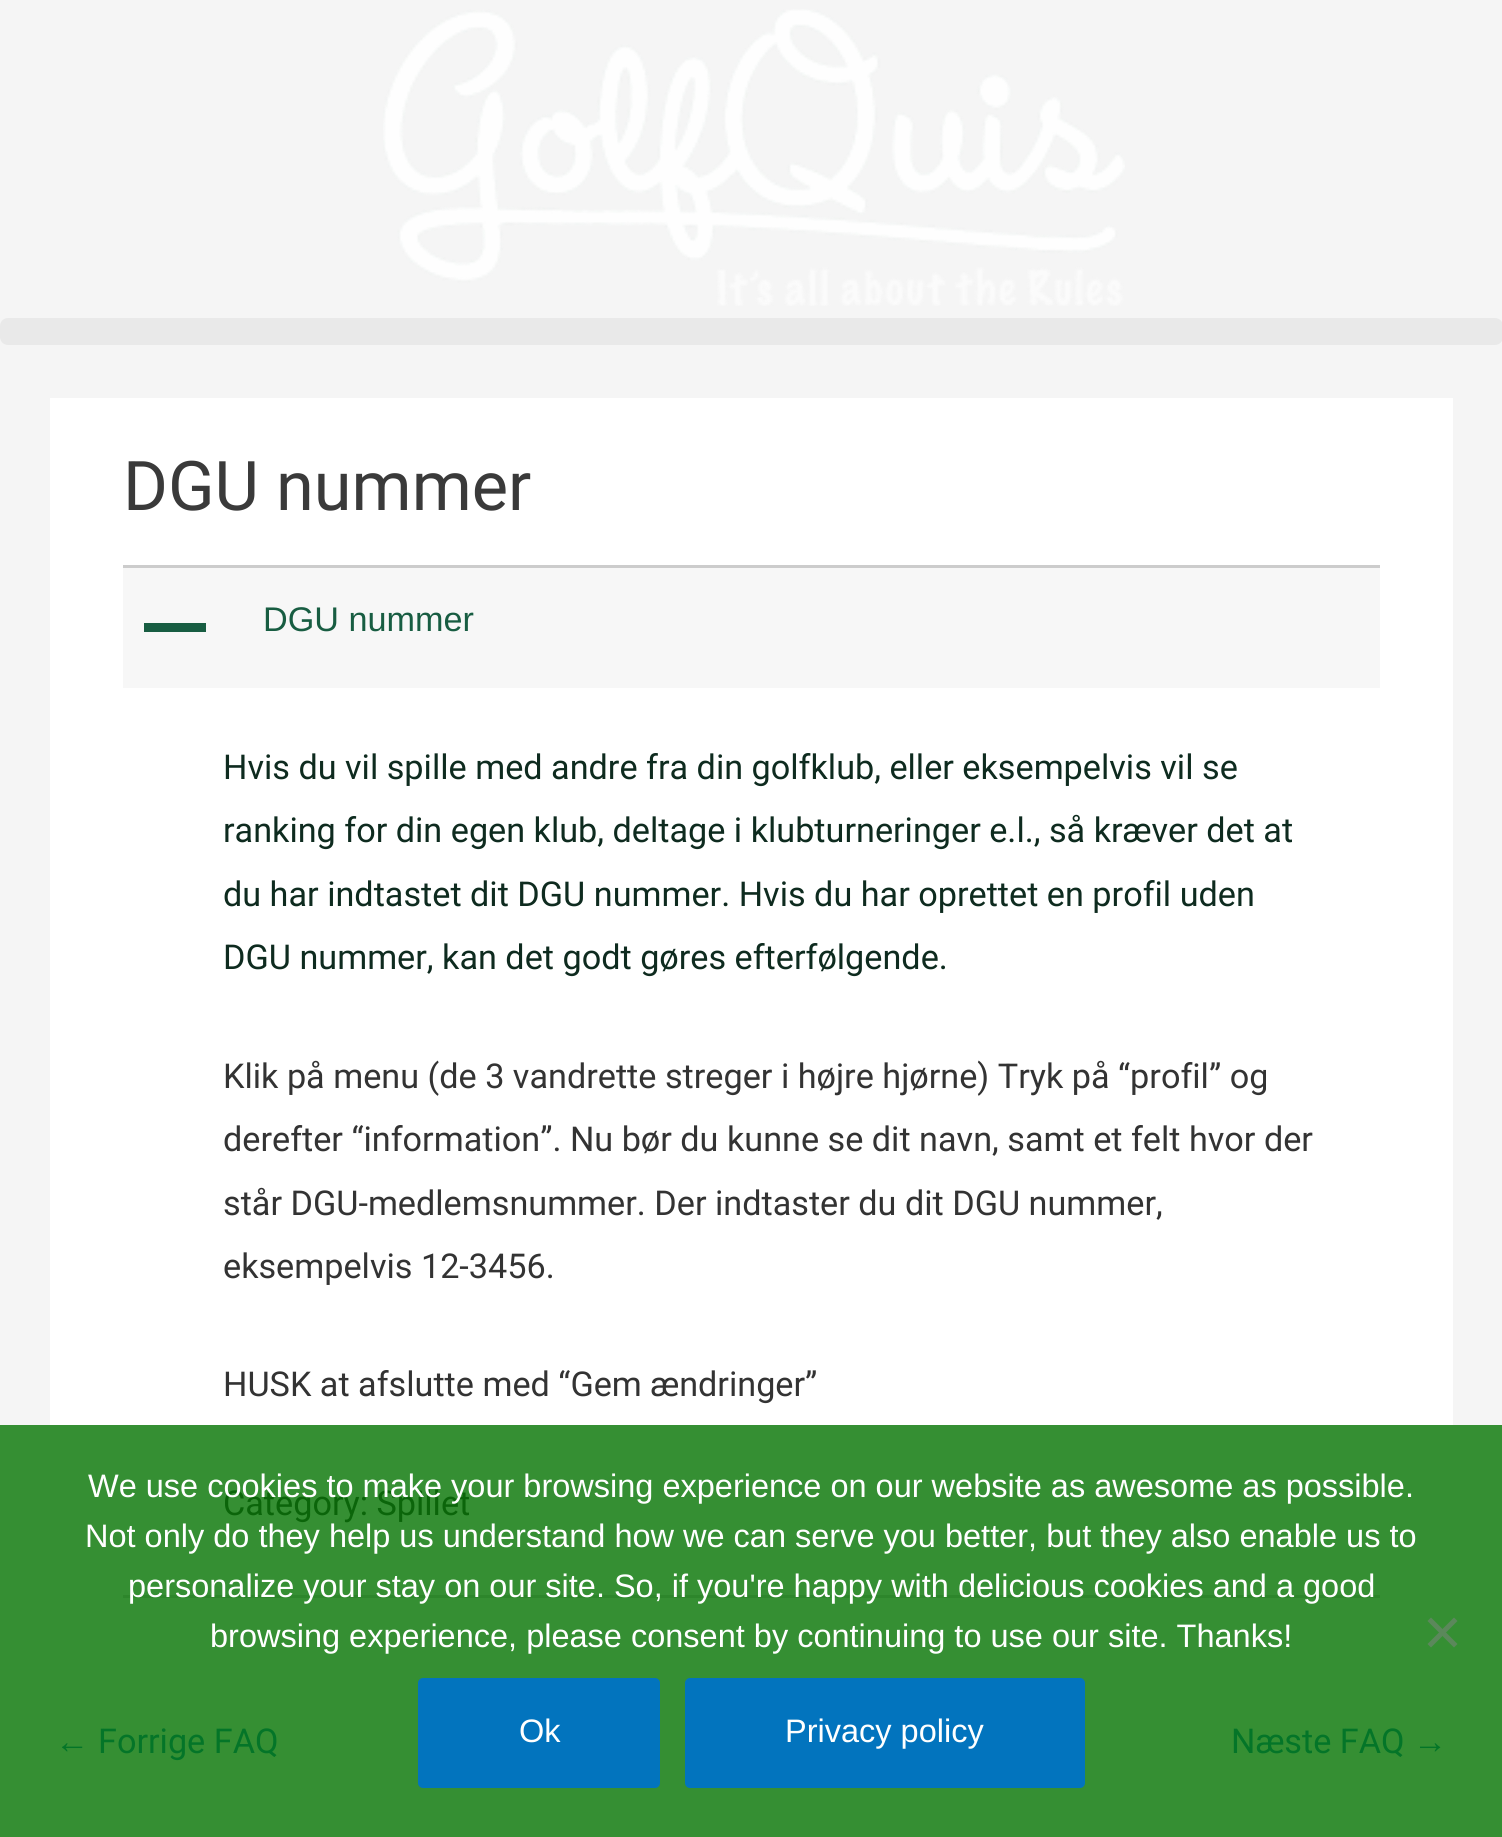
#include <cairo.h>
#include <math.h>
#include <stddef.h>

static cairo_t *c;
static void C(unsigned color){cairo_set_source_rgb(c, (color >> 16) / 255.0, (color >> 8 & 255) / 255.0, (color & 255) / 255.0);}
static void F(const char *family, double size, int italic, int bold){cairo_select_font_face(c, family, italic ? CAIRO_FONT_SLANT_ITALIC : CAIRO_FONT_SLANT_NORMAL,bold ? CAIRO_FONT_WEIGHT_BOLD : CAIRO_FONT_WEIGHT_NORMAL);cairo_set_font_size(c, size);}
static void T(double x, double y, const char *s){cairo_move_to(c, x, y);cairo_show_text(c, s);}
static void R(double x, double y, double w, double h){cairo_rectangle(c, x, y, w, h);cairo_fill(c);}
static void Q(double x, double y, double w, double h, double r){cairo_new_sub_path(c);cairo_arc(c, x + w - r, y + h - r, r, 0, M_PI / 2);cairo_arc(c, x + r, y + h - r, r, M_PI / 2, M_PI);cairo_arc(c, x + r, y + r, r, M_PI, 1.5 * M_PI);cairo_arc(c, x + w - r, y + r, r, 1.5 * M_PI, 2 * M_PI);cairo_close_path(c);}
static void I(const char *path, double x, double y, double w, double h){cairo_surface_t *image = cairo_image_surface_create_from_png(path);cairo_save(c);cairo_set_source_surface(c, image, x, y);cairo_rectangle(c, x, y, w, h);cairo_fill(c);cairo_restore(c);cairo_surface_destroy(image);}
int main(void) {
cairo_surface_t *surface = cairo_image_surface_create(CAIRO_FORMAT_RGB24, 1502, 1837);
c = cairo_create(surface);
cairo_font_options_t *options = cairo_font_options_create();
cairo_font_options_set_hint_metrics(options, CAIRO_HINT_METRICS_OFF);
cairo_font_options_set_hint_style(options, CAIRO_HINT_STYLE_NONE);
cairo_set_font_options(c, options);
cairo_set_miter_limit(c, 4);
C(0xf5f5f5);
cairo_paint(c);
C(0x358f33);
R(0,1425,1502,412);
I("1.png",383,9,742,297);
C(0xe9e9e9);
Q(0,318,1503,27,8);
cairo_fill(c);
C(0xffffff);
R(50,398,1403,1027);
F("Roboto",68.5,0,0);
C(0x3a3a3a);
T(123,510,"DGU nummer");
C(0xcccccc);
R(123,565,1257,3);
C(0x2d862b);
R(123,1595,1257,3);
C(0xf7f7f7);
R(123,568,1257,120);
C(0x185d42);
R(144,623,62,9);
F("Liberation Sans",34.2,0,0);
T(263,631,"DGU nummer");
F("Roboto",34.2,0,0);
C(0x0e2b1f);
T(223,779,"Hvis du vil spille med andre fra din golfklub, eller eksempelvis vil se");
T(223,842,"ranking for din egen klub, deltage i klubturneringer e.l., så kræver det at");
T(223,906,"du har indtastet dit DGU nummer. Hvis du har oprettet en profil uden");
T(223,969,"DGU nummer, kan det godt gøres efterfølgende.");
C(0x333333);
T(223,1088,"Klik på menu (de 3 vandrette streger i højre hjørne) Tryk på “profil” og");
T(223,1151,"derefter “information”. Nu bør du kunne se dit navn, samt et felt hvor der");
T(223,1215,"står DGU-medlemsnummer. Der indtaster du dit DGU nummer,");
T(223,1278,"eksempelvis 12-3456.");
T(223,1396,"HUSK at afslutte med “Gem ændringer”");
C(0x0b650a);
T(223,1515,"Category: Spillet");
F("Liberation Sans",34.2,0,0);
C(0x047528);
T(55,1753,"←");
F("Roboto",34.2,0,0);
T(98,1753,"Forrige FAQ");
T(1231,1753,"Næste FAQ");
F("Liberation Sans",34.2,0,0);
T(1413,1753,"→");
F("Liberation Sans",32.5,0,0);
C(0xffffff);
T(88,1497,"We use cookies to make your browsing experience on our website as awesome as possible.");
T(85,1547,"Not only do they help us understand how we can serve you better, but they also enable us to");
T(128,1597,"personalize your stay on our site. So, if you're happy with delicious cookies and a good");
T(210,1647,"browsing experience, please consent by continuing to use our site. Thanks!");
C(0x5b885b);
cairo_new_path(c);
cairo_move_to(c,1454,1617.5);
cairo_line_to(c,1457.5,1621);
cairo_line_to(c,1431,1647.5);
cairo_line_to(c,1427.5,1644);
cairo_close_path(c);
cairo_fill(c);
cairo_new_path(c);
cairo_move_to(c,1427.5,1621);
cairo_line_to(c,1431,1617.5);
cairo_line_to(c,1457.5,1644);
cairo_line_to(c,1454,1647.5);
cairo_close_path(c);
cairo_fill(c);
C(0x0274be);
Q(418,1678,242,110,5);
cairo_fill(c);
C(0xffffff);
T(519,1742,"Ok");
C(0x0274be);
Q(685,1678,400,110,5);
cairo_fill(c);
C(0xffffff);
T(785,1742,"Privacy policy");
cairo_surface_write_to_png(surface, "o.png");
cairo_font_options_destroy(options);
cairo_destroy(c);
cairo_surface_destroy(surface);
return 0;
}
